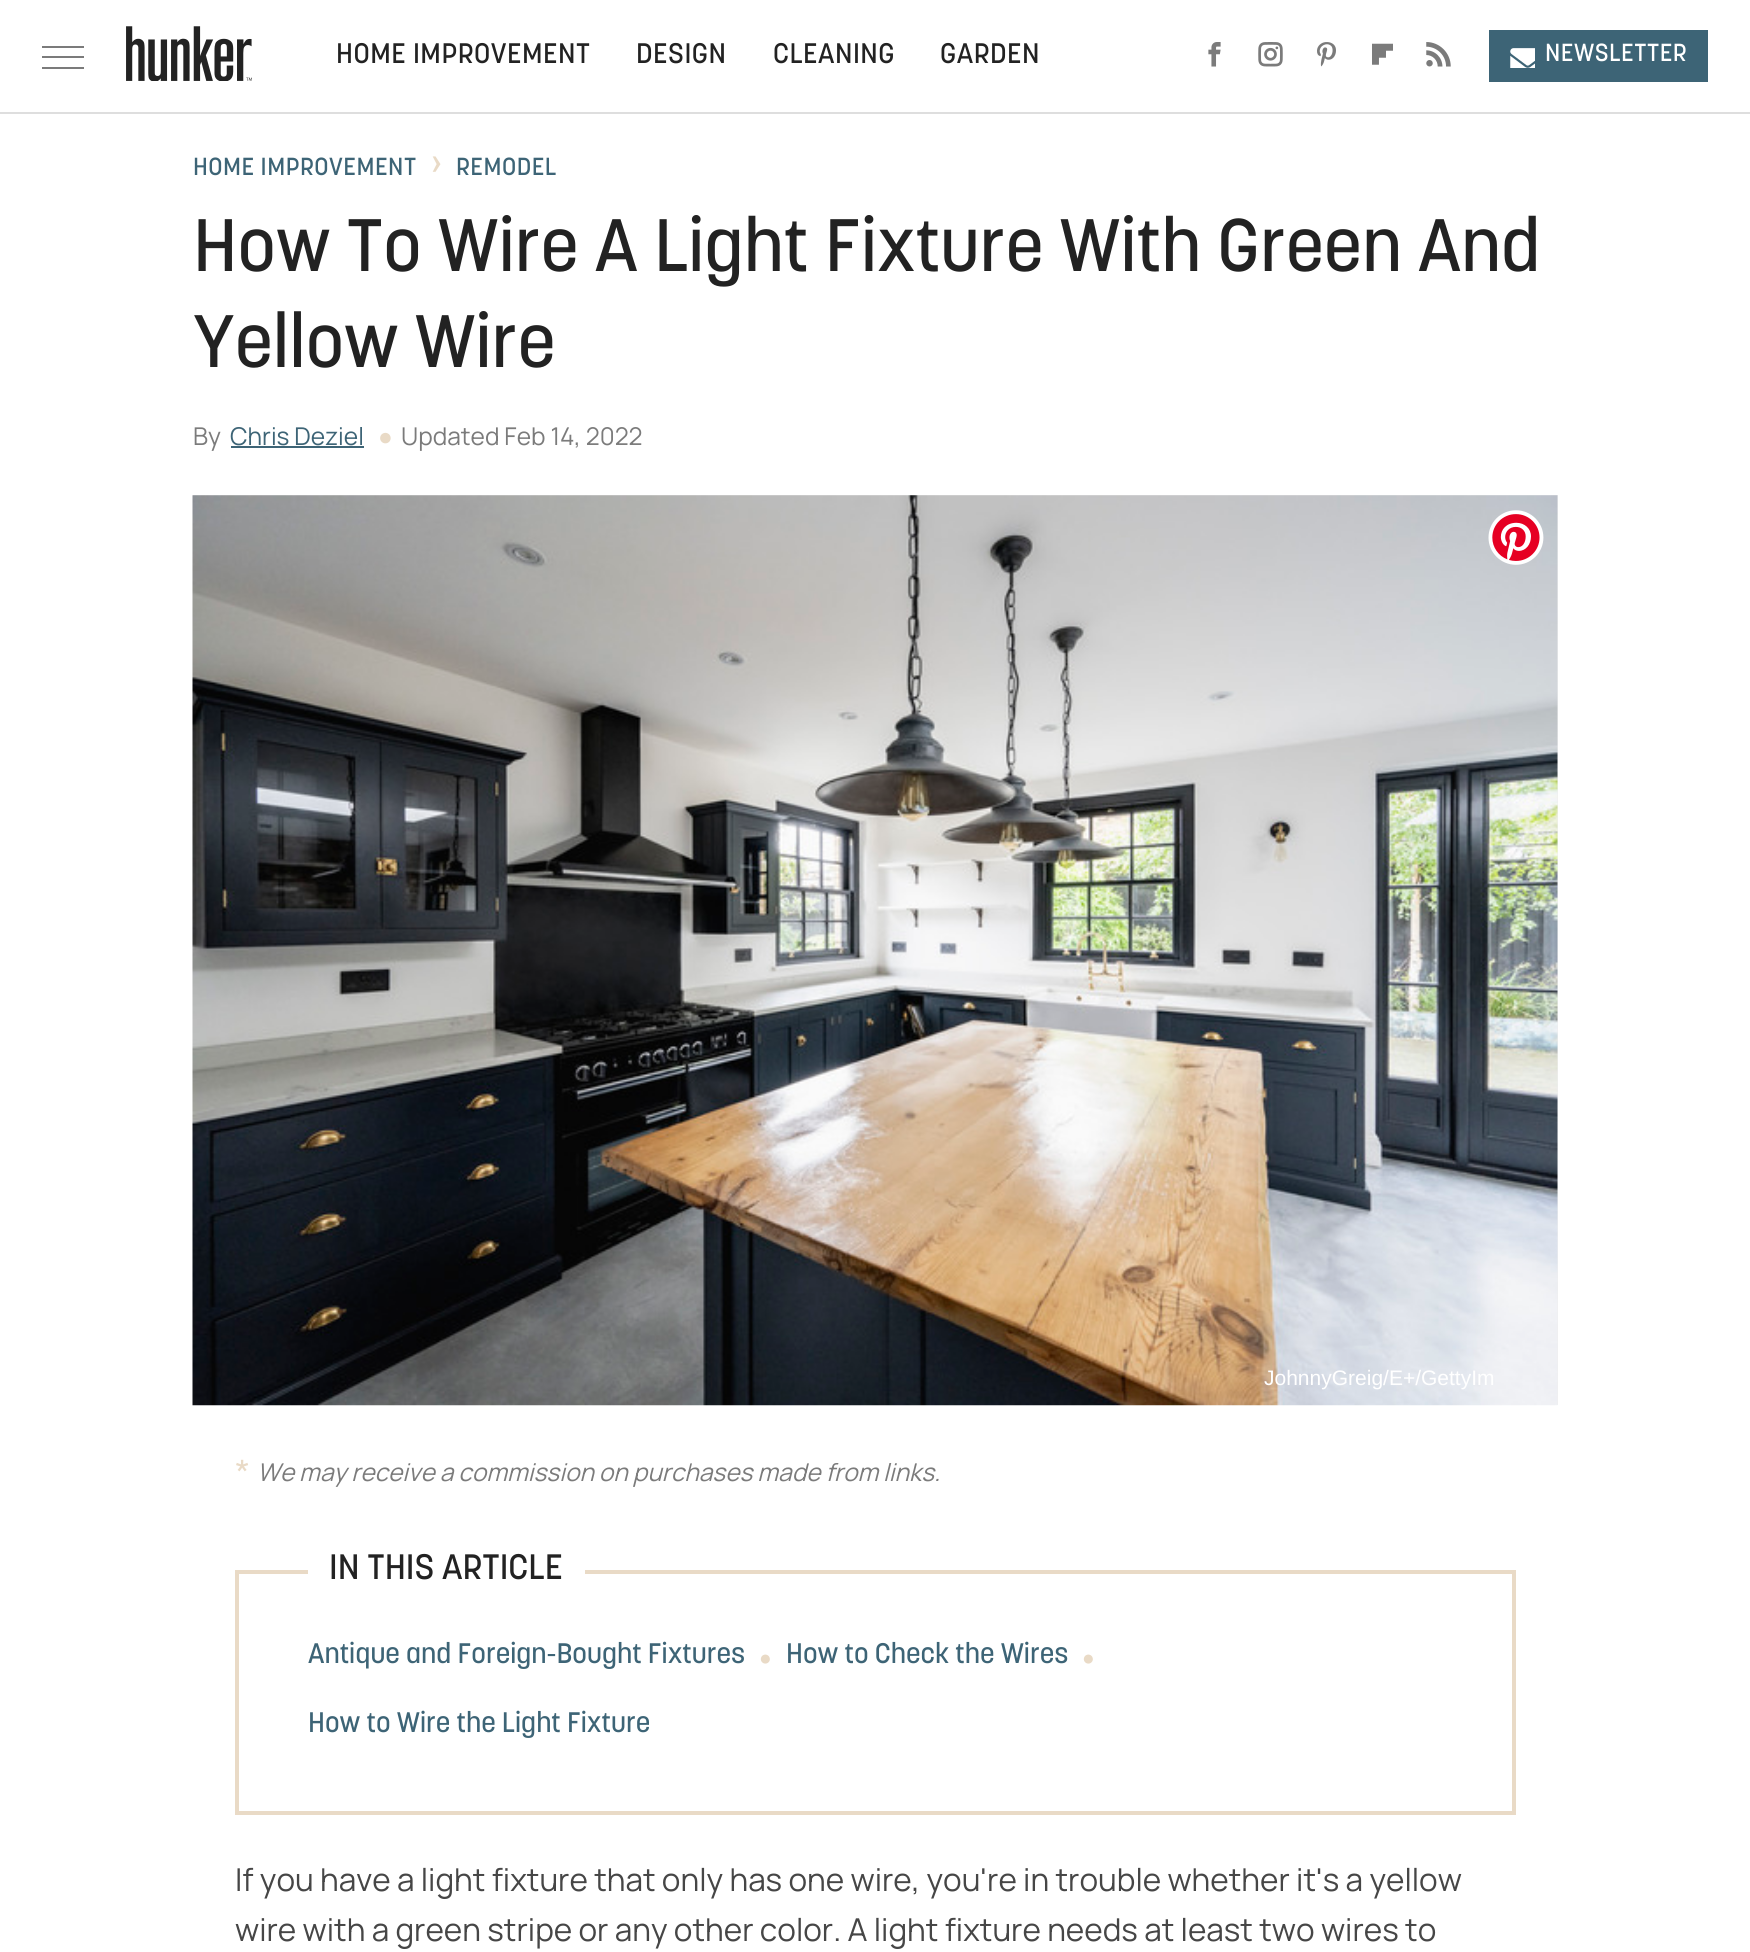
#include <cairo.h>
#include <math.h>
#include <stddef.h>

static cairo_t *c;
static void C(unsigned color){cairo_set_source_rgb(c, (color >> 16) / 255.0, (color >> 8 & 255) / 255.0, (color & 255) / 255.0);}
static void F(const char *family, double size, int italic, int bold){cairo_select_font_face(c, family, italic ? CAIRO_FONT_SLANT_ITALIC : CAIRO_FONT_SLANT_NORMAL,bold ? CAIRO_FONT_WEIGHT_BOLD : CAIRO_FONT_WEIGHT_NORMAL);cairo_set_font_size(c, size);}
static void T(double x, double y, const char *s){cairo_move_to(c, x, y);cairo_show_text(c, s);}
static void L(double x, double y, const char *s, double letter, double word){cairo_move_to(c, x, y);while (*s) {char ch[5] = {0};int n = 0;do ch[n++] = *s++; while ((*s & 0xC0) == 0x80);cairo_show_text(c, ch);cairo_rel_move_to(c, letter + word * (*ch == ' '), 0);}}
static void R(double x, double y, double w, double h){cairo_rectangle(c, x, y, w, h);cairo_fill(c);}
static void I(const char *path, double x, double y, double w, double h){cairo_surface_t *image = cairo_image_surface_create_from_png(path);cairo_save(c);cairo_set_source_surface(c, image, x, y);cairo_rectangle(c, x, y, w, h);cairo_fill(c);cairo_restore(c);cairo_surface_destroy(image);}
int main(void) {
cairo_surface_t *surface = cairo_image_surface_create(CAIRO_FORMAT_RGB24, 1750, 1952);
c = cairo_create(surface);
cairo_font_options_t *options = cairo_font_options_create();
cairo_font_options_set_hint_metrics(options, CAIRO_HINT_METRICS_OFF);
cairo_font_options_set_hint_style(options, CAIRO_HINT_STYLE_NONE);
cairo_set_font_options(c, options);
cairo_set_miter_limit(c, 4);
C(0xffffff);
cairo_paint(c);
C(0xdedede);
R(0,112,1750,2);
C(0x7b7b7b);
R(42,46,42,2);
R(42,56,42,2);
R(42,67,42,2);
I("1.png",126,26,126,55);
F("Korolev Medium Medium",28,0,0);
C(0x222222);
L(336,63,"HOME IMPROVEMENT",.5,0);
L(636,63,"DESIGN",.5,0);
L(773,63,"CLEANING",.5,0);
L(940,63,"GARDEN",.5,0);
I("2.png",1208,42,13,25);
I("3.png",1258,42,25,25);
I("4.png",1317,42,19,25);
I("5.png",1372,43,21,22);
I("6.png",1426,42,25,25);
C(0x3d6476);
R(1489,30,219,52);
I("7.png",1510,48,25,20);
F("Korolev Medium Medium",24.5,0,0);
C(0xffffff);
L(1545,61,"NEWSLETTER",.5,0);
C(0x3d6476);
L(193,175,"HOME IMPROVEMENT",.5,0);
F("Korolev Medium Medium",38,0,0);
C(0xe9dac6);
L(431,175,"›",.5,0);
F("Korolev Medium Medium",24.5,0,0);
C(0x3d6476);
L(456,175,"REMODEL",.5,0);
F("Korolev Medium Medium",73.5,0,0);
C(0x222222);
T(193,271,"How To Wire A Light Fixture With Green And");
T(193,367,"Yellow Wire");
F("Manrope",24.5,0,0);
C(0x7b7b7b);
T(193,445,"By");
C(0x3d6476);
T(230,445,"Chris Deziel");
R(231,446,133,2);
F("Liberation Sans",24.5,0,0);
C(0xe9dac6);
T(378,445,"●");
F("Manrope",24.5,0,0);
C(0x7b7b7b);
T(401,445,"Updated Feb 14, 2022");
C(0xefefef);
R(193,495,1365,910);
I("8.png",192,495,1366,911);
I("9.png",1488,510,56,55);
F("Liberation Sans",21,0,0);
C(0xffffff);
T(1264,1385,"JohnnyGreig/E+/GettyIm");
F("Manrope",35,0,0);
C(0xe9dac6);
T(235,1485,"*");
F("Manrope",24.5,1,0);
C(0x7b7b7b);
T(257,1481,"We may receive a commission on purchases made from links.");
cairo_rectangle(c,237,1572,1277,241);
C(0xe9dac6);
cairo_set_line_width(c,4);
cairo_stroke(c);
C(0xffffff);
R(308,1570,277,4);
F("Korolev Medium Medium",35,0,0);
C(0x222222);
T(329,1579,"IN THIS ARTICLE");
F("Korolev Medium Medium",28,0,0);
C(0x3d6476);
T(308,1663,"Antique and Foreign-Bought Fixtures");
F("Liberation Sans",21,0,0);
C(0xe9dac6);
T(759,1665,"●");
F("Korolev Medium Medium",28,0,0);
C(0x3d6476);
T(786,1663,"How to Check the Wires");
F("Liberation Sans",21,0,0);
C(0xe9dac6);
T(1082,1665,"●");
F("Korolev Medium Medium",28,0,0);
C(0x3d6476);
T(308,1732,"How to Wire the Light Fixture");
F("Manrope",31.5,0,0);
C(0x464646);
T(235,1891,"If you have a light fixture that only has one wire, you're in trouble whether it's a yellow");
T(235,1941,"wire with a green stripe or any other color. A light fixture needs at least two wires to");
cairo_surface_write_to_png(surface, "o.png");
cairo_font_options_destroy(options);
cairo_destroy(c);
cairo_surface_destroy(surface);
return 0;
}
